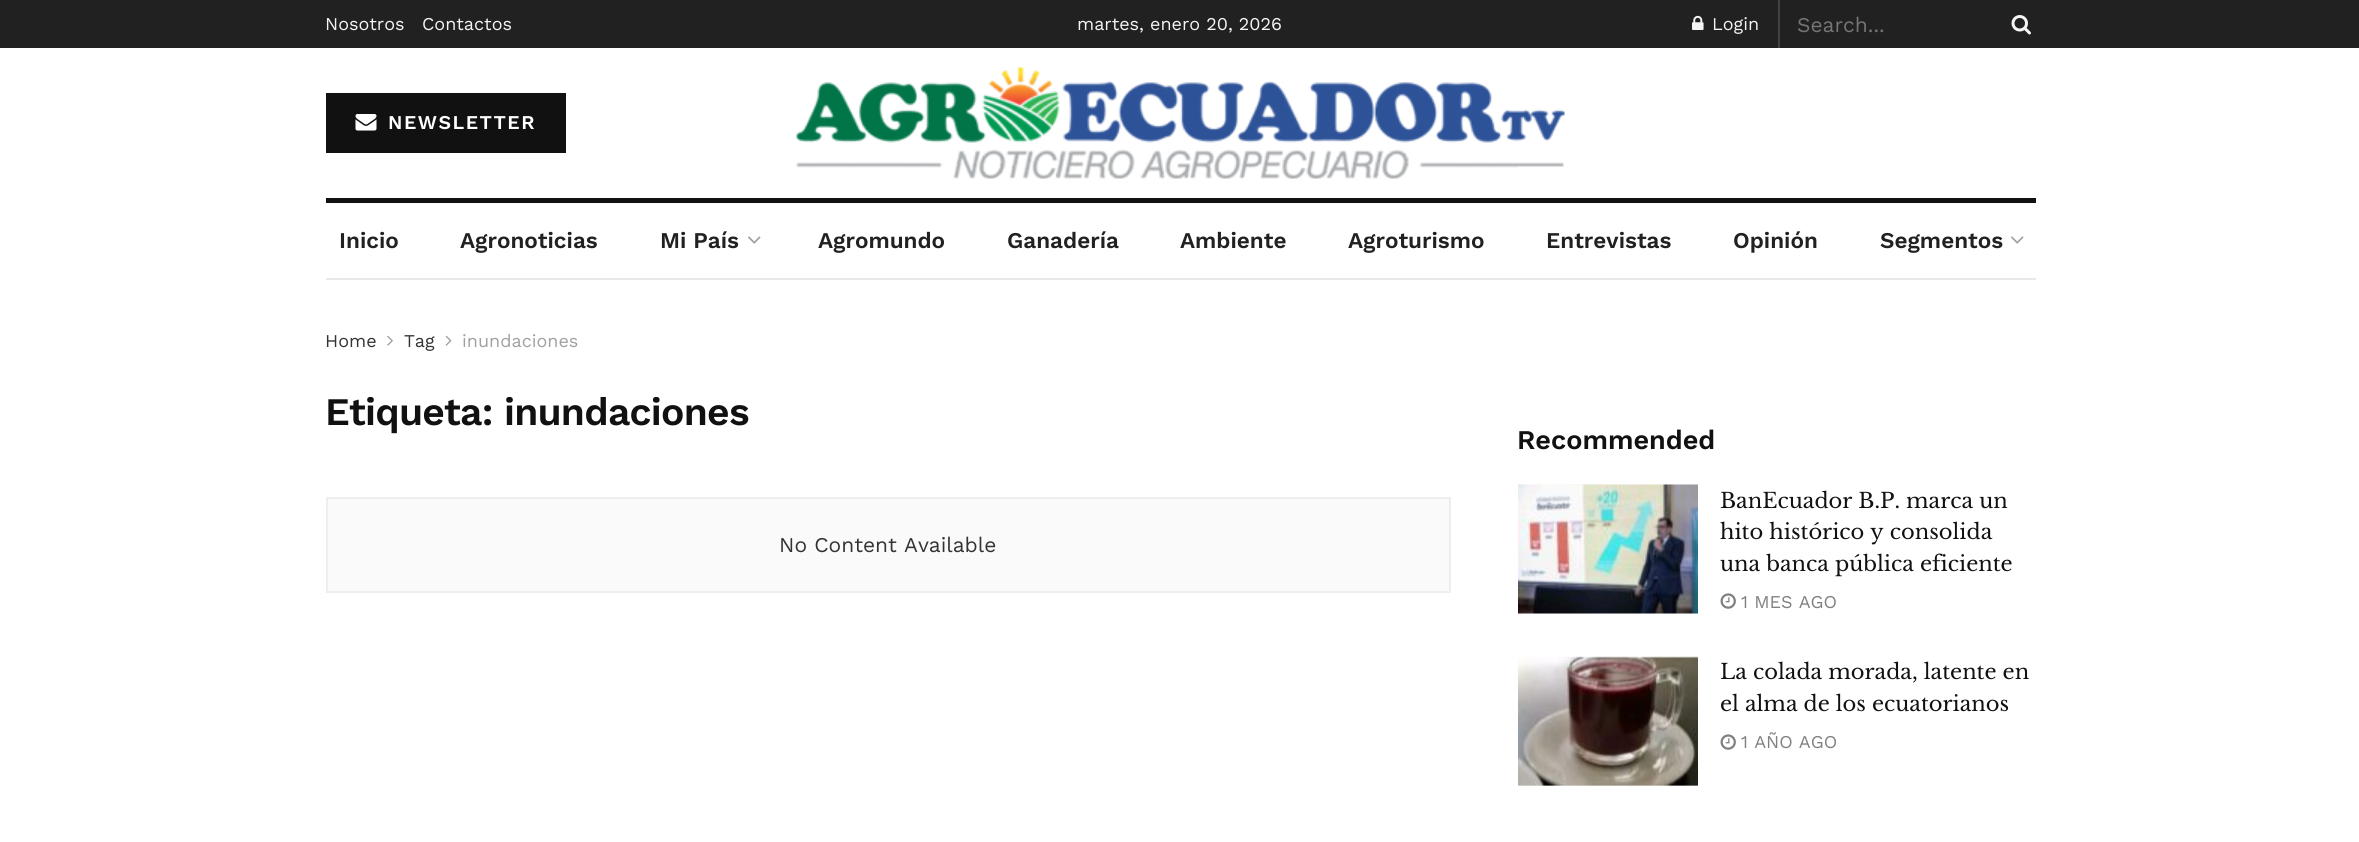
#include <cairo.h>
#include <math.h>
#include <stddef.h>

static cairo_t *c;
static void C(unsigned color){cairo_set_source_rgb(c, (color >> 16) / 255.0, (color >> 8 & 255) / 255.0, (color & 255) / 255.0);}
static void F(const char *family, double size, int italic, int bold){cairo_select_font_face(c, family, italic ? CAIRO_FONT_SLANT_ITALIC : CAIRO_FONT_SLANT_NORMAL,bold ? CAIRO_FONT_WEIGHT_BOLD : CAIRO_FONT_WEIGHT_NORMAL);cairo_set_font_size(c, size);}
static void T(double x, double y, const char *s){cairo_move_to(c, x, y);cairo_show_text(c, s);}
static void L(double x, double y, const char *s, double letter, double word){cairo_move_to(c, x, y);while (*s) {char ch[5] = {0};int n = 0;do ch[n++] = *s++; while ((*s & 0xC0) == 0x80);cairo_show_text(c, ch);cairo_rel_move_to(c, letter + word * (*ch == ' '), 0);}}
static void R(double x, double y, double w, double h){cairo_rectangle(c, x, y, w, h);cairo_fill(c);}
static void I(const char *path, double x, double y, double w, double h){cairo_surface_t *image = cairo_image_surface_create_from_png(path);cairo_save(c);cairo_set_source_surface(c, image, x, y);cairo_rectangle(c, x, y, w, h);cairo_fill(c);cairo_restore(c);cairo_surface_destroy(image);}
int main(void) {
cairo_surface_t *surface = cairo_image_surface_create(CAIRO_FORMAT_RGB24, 2359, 842);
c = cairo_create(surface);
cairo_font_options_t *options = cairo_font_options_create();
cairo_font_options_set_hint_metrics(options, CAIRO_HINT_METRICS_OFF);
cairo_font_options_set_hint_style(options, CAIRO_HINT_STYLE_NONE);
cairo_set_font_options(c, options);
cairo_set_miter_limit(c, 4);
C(0xffffff);
cairo_paint(c);
C(0x212121);
R(0,0,2359,48);
F("Work Sans",18,0,0);
C(0xf5f5f5);
T(325,30,"Nosotros");
T(422,30,"Contactos");
T(1077,30,"martes, enero 20, 2026");
C(0x424242);
R(1778,0,2,48);
I("1.png",1692,15,12,15);
C(0xf5f5f5);
T(1712,30,"Login");
F("Work Sans",21,0,0);
C(0x757575);
T(1797,32,"Search...");
I("2.png",2011,15,20,20);
C(0x111111);
R(326,93,240,60);
I("3.png",355,114,22,17);
F("Work Sans SemiBold",19.5,0,0);
C(0xffffff);
L(388,129,"NEWSLETTER",1.5,0);
I("4.png",796,67,769,112);
C(0x111111);
R(326,198,1710,5);
C(0xe8e8e8);
R(326,278,1710,2);
F("Work Sans SemiBold",22.5,0,0);
C(0x212121);
T(339,248,"Inicio");
T(460,248,"Agronoticias");
T(660,248,"Mi País");
I("5.png",748,236,13,8);
T(818,248,"Agromundo");
T(1007,248,"Ganadería");
T(1180,248,"Ambiente");
T(1348,248,"Agroturismo");
T(1546,248,"Entrevistas");
T(1733,248,"Opinión");
T(1880,248,"Segmentos");
I("5.png",2011,236,13,8);
F("Work Sans",18,0,0);
C(0x333333);
T(325,347,"Home");
I("6.png",387,335,6,11);
T(404,347,"Tag");
I("7.png",445,335,7,11);
C(0xa0a0a0);
T(462,347,"inundaciones");
F("Work Sans SemiBold",39,0,0);
C(0x111111);
L(325,425,"Etiqueta: inundaciones",-.75,0);
C(0xfafafa);
cairo_rectangle(c,327,498,1123,94);
cairo_fill_preserve(c);
C(0xeeeeee);
cairo_stroke(c);
F("Work Sans",21,0,0);
C(0x333333);
T(779,552,"No Content Available");
F("Work Sans SemiBold",27,0,0);
C(0x111111);
T(1517,449,"Recommended");
I("8.png",1518,484,180,130);
I("9.png",1518,484,180,130);
F("Libre Baskerville",21,0,0);
T(1720,508,"BanEcuador B.P. marca un");
T(1720,539,"hito histórico y consolida");
T(1720,571,"una banca pública eficiente");
I("10.png",1720,593,16,16);
F("Work Sans",18,0,0);
C(0x808080);
T(1741,608,"1 MES AGO");
C(0xf7f7f7);
R(1518,657,180,129);
I("12.png",1563,657,36,129);
I("11.png",1518,656,180,130);
F("Libre Baskerville",21,0,0);
C(0x111111);
T(1720,679,"La colada morada, latente en");
T(1720,711,"el alma de los ecuatorianos");
I("10.png",1720,734,16,16);
F("Work Sans",18,0,0);
C(0x808080);
T(1741,748,"1 AÑO AGO");
cairo_surface_write_to_png(surface, "o.png");
cairo_font_options_destroy(options);
cairo_destroy(c);
cairo_surface_destroy(surface);
return 0;
}
